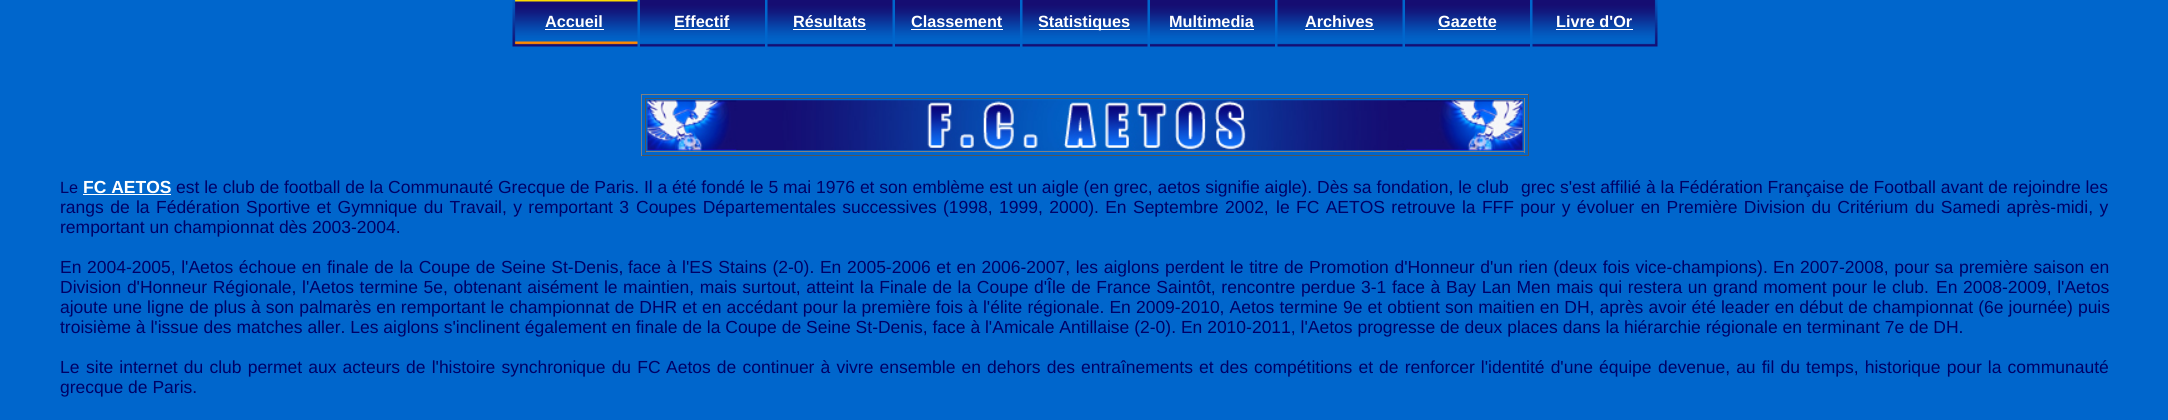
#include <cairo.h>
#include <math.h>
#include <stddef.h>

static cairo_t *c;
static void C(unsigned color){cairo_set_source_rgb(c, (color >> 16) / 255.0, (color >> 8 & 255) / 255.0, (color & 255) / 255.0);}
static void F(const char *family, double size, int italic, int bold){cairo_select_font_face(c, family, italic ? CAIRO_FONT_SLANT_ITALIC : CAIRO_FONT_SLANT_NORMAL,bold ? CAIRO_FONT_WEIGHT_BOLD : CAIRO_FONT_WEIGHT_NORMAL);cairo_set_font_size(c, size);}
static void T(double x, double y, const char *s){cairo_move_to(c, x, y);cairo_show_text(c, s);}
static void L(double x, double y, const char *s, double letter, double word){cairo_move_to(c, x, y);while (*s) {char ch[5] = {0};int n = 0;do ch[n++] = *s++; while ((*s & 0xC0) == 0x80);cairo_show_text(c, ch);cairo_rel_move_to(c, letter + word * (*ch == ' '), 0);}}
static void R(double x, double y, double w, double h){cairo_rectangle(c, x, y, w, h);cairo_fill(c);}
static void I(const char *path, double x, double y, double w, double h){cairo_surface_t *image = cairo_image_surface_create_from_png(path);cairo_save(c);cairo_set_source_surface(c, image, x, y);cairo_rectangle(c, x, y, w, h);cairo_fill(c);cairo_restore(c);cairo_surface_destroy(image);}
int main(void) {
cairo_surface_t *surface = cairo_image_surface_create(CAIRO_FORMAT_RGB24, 2168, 420);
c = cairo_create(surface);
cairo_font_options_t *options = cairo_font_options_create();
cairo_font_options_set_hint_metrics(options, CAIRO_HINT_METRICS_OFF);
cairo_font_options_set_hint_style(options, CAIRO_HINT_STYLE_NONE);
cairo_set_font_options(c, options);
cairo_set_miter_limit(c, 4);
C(0x0066cc);
cairo_paint(c);
I("1.png",512,0,126,47);
F("Liberation Sans",16.25,0,1);
C(0xffffff);
T(545,27,"Accueil");
R(545,29,59,1);
I("2.png",640,0,125,47);
T(674,27,"Effectif");
R(674,29,56,1);
I("3.png",767,0,126,47);
T(793,27,"Résultats");
R(793,29,73,1);
I("2.png",895,0,125,47);
T(911,27,"Classement");
R(911,29,92,1);
I("3.png",1022,0,126,47);
R(1039,29,91,1);
T(1038,27,"Statistiques");
I("2.png",1150,0,125,47);
T(1169,27,"Multimedia");
R(1170,29,84,1);
I("3.png",1277,0,126,47);
T(1305,27,"Archives");
R(1305,29,69,1);
I("2.png",1405,0,125,47);
T(1438,27,"Gazette");
R(1438,29,58,1);
I("4.png",1532,0,126,47);
T(1556,27,"Livre d'Or");
R(1556,29,77,1);
C(0x808080);
R(641,94,888,1);
C(0x555555);
R(1528,94,1,62);
R(641,155,888,1);
C(0x808080);
R(641,94,1,62);
C(0x555555);
R(645,98,880,1);
C(0x808080);
R(1524,98,1,55);
R(645,151,880,1);
C(0x555555);
R(645,98,1,55);
I("5.png",647,100,876,51);
F("Liberation Sans",16.25,0,0);
C(0x000066);
T(60,193,"Le");
F("Liberation Sans",17.5,0,1);
C(0xffffff);
T(83,193,"FC AETOS");
R(83,194,88,1);
F("Liberation Sans",17.5,0,0);
C(0x000066);
T(176,193,"est le club de football de la Communauté Grecque de Paris. Il a été fondé le 5 mai 1976 et son emblème est un aigle (en grec, aetos signifie aigle). Dès sa fondation, le club");
T(1521,193,"grec s'est affilié à la Fédération Française de Football avant de rejoindre les");
L(60,213,"rangs de la Fédération Sportive et Gymnique du Travail, y remportant 3",0,1.5);
L(636,213,"Coupes Départementales successives (1998, 1999, 2000). En Septembre 2002,",0,1.5);
L(1276,213,"le FC AETOS retrouve la FFF pour y évoluer en Première Division du Critérium",0,1.5);
L(1915,213,"du Samedi après-midi, y",0,1.5);
T(60,233,"remportant un championnat dès 2003-2004.");
T(60,273,"En");
L(87,273,"2004-2005, l'Aetos échoue en finale de la Coupe de Seine St-Denis,",0,.75);
L(628,273,"face à l'ES Stains (2-0). En 2005-2006 et en 2006-2007, les aiglons",0,.75);
L(1165,273,"perdent le titre de Promotion d'Honneur d'un rien (deux fois vice-champions).",0,.75);
L(1773,273,"En 2007-2008, pour sa première saison en",0,.75);
L(60,293,"Division d'Honneur Régionale,",0,.75);
L(302,293,"l'Aetos termine 5e, obtenant aisément le maintien, mais surtout, atteint",0,.75);
L(860,293,"la Finale de la Coupe d'Île de France Saintôt, rencontre perdue",0,.75);
L(1361,293,"3-1 face à Bay Lan Men mais qui restera un grand moment pour le club.",0,.75);
L(1936,293,"En 2008-2009, l'Aetos",0,.75);
L(60,313,"ajoute une ligne de plus à son palmarès en remportant le championnat de DHR et en accédant pour la première fois à l'élite régionale. En 2009-2010, Aetos termine 9e et obtient son maitien en DH, après avoir été leader en début de championnat (6e journée) puis",0,.25);
T(60,333,"troisième à l'issue des matches aller. Les aiglons s'inclinent également en finale de la Coupe de Seine St-Denis, face à l'Amicale Antillaise (2-0). En 2010-2011, l'Aetos progresse de deux places dans la hiérarchie régionale en terminant 7e de DH.");
T(60,373,"Le");
L(86,373,"site internet du club permet aux acteurs de l'histoire synchronique du FC",0,1.25);
L(666,373,"Aetos de continuer à vivre ensemble en dehors des entraînements",0,1.25);
L(1199,373,"et des compétitions et de renforcer l'identité d'une équipe",0,1.25);
L(1658,373,"devenue, au fil du temps, historique pour la communauté",0,1.25);
T(60,393,"grecque de Paris.");
cairo_surface_write_to_png(surface, "o.png");
cairo_font_options_destroy(options);
cairo_destroy(c);
cairo_surface_destroy(surface);
return 0;
}
